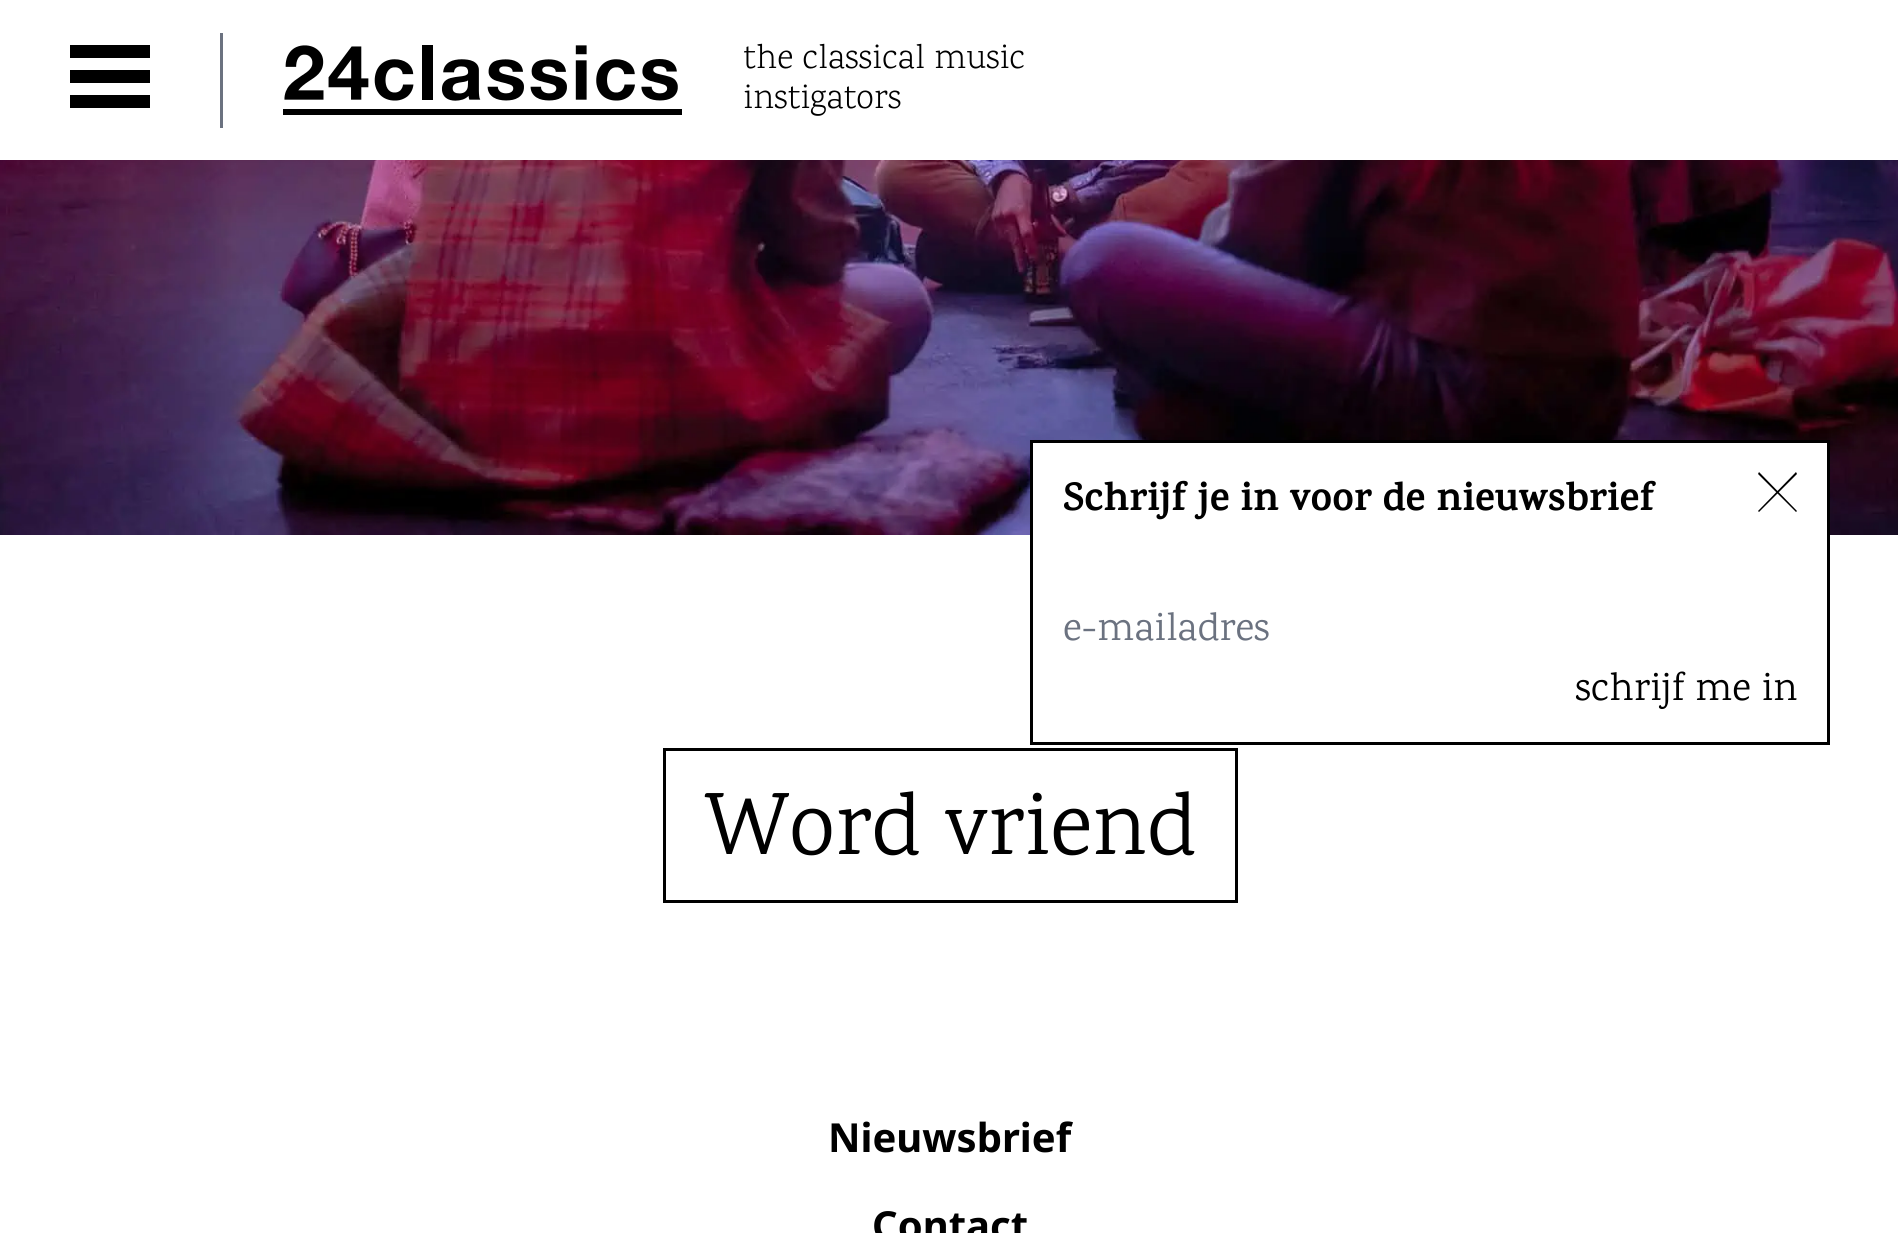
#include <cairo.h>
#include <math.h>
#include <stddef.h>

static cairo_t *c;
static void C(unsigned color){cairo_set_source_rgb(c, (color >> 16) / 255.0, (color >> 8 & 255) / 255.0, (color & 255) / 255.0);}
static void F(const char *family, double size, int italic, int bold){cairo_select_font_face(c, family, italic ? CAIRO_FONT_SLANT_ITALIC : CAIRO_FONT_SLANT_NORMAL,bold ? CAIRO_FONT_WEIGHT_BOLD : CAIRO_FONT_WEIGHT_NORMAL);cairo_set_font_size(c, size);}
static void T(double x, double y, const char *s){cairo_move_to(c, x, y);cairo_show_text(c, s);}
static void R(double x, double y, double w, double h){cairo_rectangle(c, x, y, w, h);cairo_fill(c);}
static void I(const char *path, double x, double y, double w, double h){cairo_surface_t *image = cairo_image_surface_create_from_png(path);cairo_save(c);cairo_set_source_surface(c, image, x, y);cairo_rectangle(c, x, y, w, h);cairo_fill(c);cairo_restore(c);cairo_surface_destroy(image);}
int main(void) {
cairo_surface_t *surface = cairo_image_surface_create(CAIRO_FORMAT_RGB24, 1898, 1233);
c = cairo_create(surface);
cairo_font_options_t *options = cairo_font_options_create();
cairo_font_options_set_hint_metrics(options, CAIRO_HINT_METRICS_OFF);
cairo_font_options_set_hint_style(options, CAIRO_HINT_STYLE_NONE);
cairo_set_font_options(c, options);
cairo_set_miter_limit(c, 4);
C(0xffffff);
cairo_paint(c);
C(0x000000);
R(70,45,80,13);
R(70,70,80,13);
R(70,95,80,13);
C(0x6b7280);
R(220,33,3,95);
I("1.png",283,45,399,70);
F("Karma Light",35,0,0);
C(0x000000);
T(743,68,"the classical music");
T(743,108,"instigators");
I("2.png",0,160,1898,375);
C(0xffffff);
R(1033,443,794,92);
cairo_rectangle(c,1031.5,441.5,797,302);
C(0x000000);
cairo_set_line_width(c,3);
cairo_stroke(c);
cairo_new_path(c);
cairo_move_to(c,1758,474);
cairo_line_to(c,1759,472);
cairo_line_to(c,1797,511);
cairo_line_to(c,1796,512);
cairo_close_path(c);
cairo_move_to(c,1758,511);
cairo_line_to(c,1796,472);
cairo_line_to(c,1797,474);
cairo_line_to(c,1759,512);
cairo_close_path(c);
cairo_fill(c);
F("Karma",40,0,1);
T(1063,510,"Schrijf je in voor de nieuwsbrief");
F("Karma",40,0,0);
C(0x6b7280);
T(1063,640,"e-mailadres");
C(0x000000);
T(1575,700,"schrijf me in");
cairo_rectangle(c,664.5,749.5,572,152);
cairo_stroke(c);
F("Karma",90,0,0);
T(704,854,"Word vriend");
F("Noto Sans",40,0,1);
T(828,1152,"Nieuwsbrief");
T(872,1240,"Contact");
cairo_surface_write_to_png(surface, "o.png");
cairo_font_options_destroy(options);
cairo_destroy(c);
cairo_surface_destroy(surface);
return 0;
}
